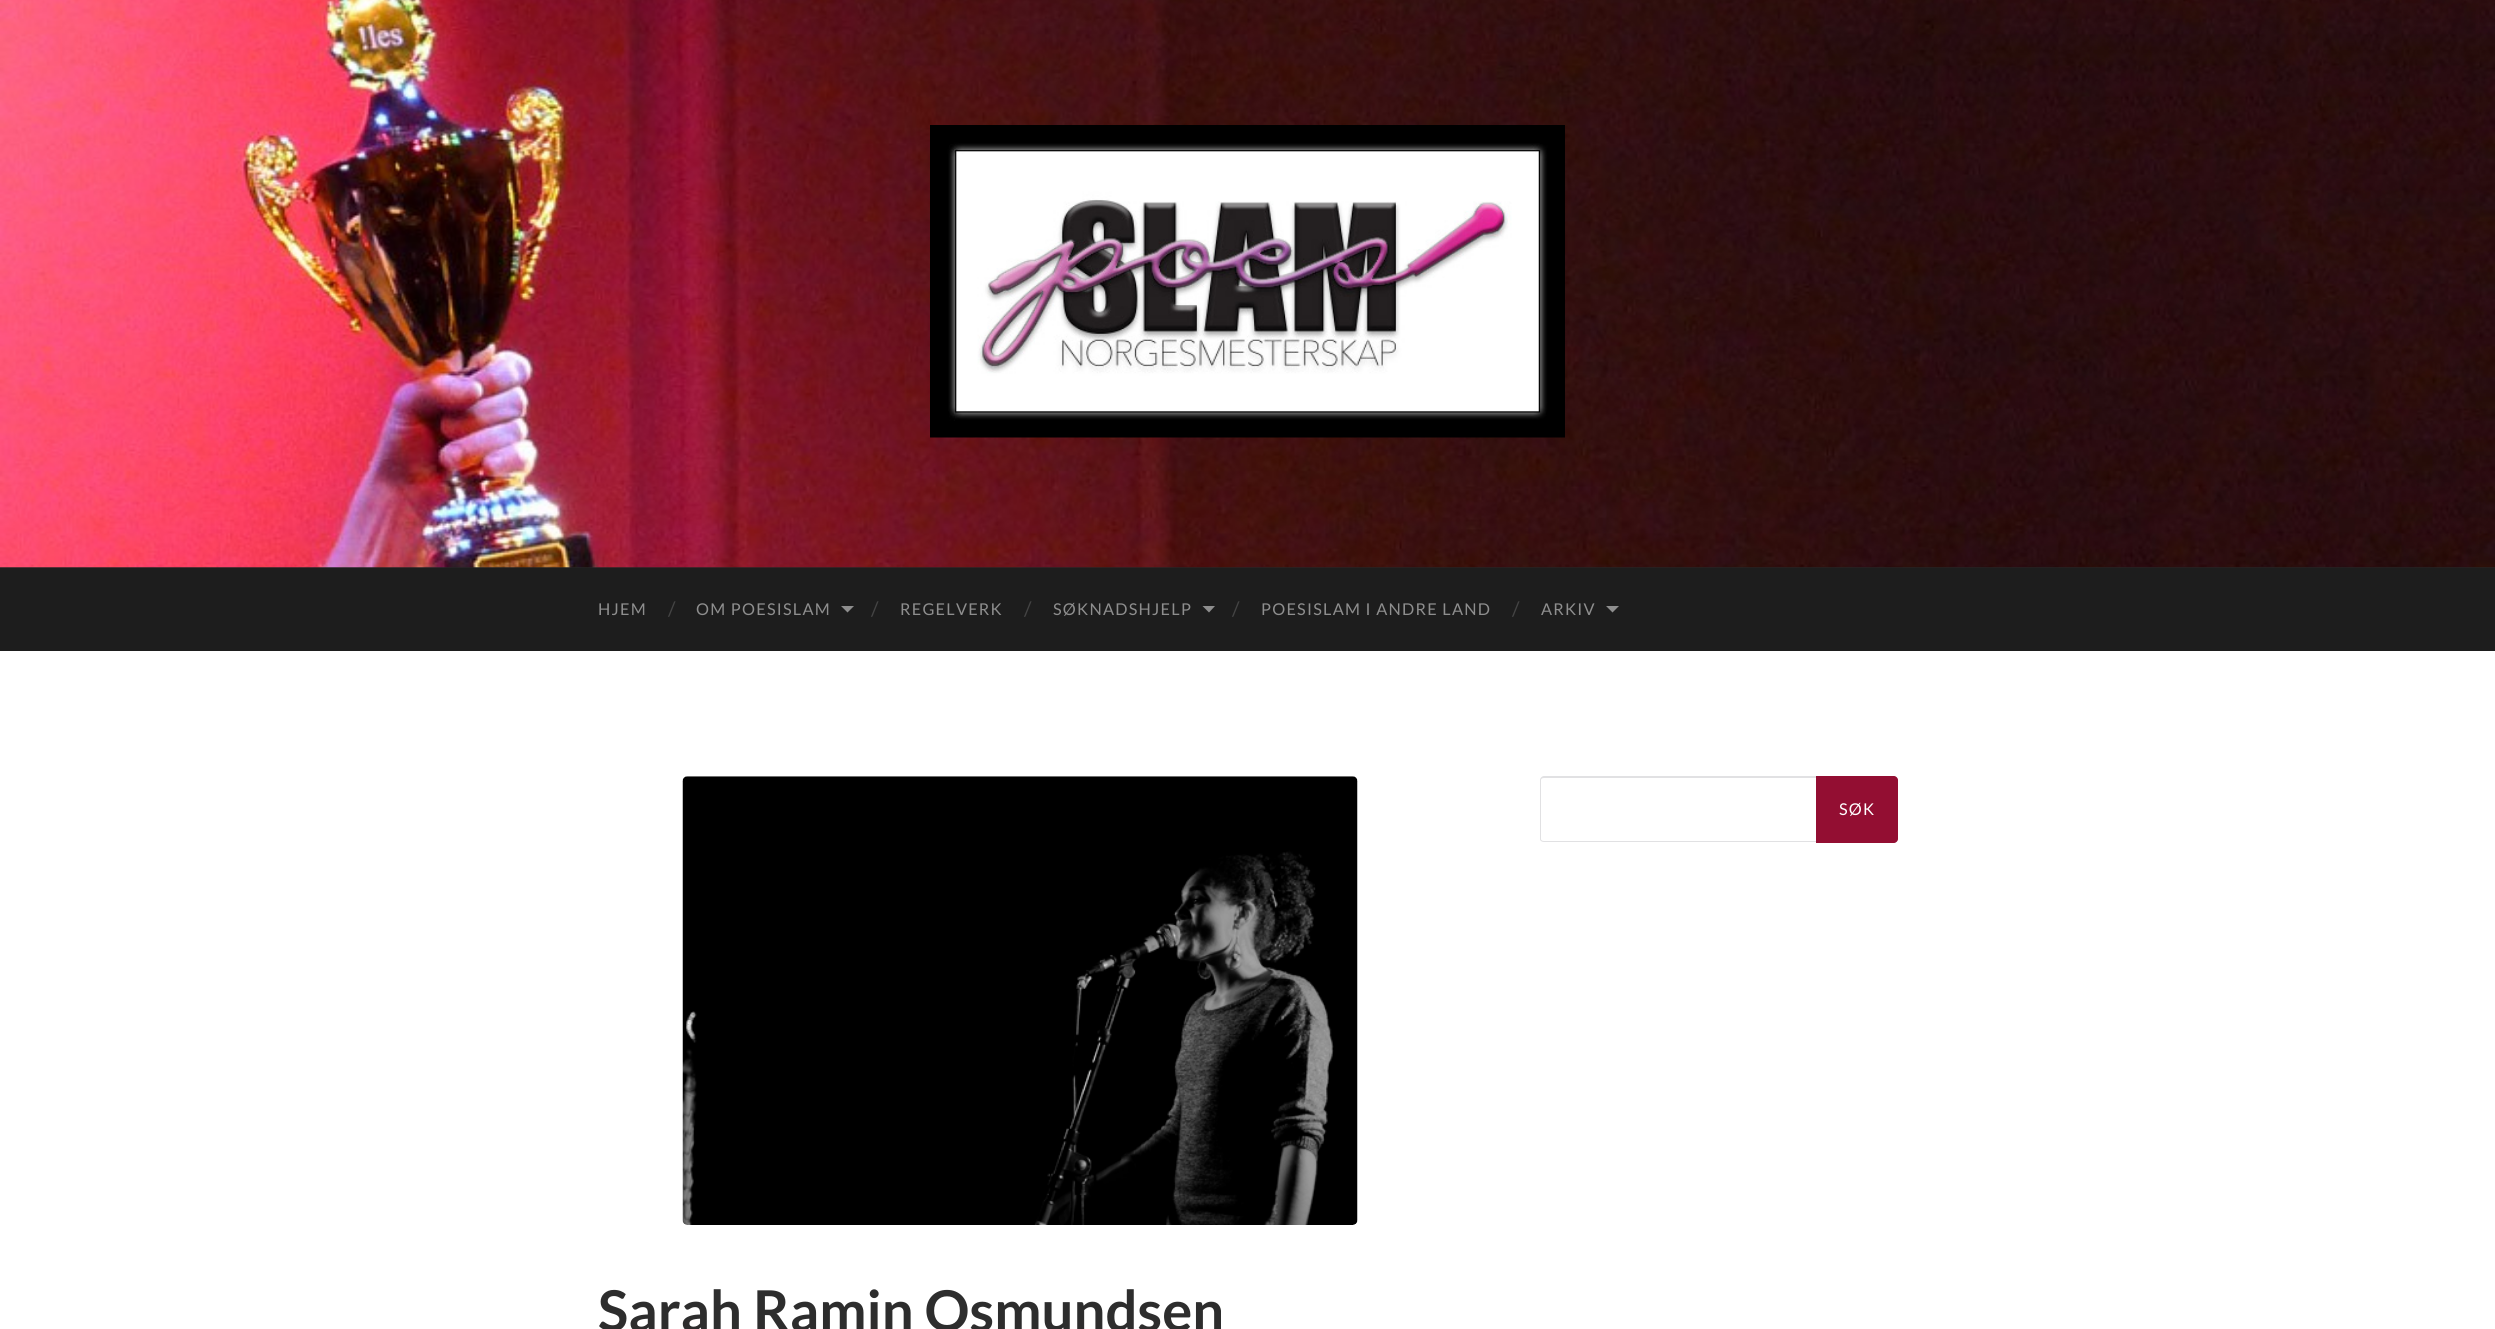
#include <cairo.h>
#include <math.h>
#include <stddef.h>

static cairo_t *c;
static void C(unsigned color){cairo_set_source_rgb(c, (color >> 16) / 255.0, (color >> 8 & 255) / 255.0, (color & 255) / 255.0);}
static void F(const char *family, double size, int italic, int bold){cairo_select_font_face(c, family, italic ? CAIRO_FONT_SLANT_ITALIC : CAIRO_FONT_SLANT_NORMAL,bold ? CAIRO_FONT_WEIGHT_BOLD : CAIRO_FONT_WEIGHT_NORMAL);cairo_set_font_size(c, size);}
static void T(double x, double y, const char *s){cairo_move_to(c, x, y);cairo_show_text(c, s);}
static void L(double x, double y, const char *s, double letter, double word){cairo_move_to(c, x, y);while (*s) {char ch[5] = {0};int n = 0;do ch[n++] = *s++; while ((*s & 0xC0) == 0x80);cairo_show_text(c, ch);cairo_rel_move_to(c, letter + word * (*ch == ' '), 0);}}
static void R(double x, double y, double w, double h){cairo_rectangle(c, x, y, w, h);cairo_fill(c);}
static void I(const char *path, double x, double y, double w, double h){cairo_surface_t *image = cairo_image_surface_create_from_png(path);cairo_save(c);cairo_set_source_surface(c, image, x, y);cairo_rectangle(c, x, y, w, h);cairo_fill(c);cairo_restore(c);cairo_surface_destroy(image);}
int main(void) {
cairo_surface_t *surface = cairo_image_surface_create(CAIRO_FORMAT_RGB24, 2495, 1329);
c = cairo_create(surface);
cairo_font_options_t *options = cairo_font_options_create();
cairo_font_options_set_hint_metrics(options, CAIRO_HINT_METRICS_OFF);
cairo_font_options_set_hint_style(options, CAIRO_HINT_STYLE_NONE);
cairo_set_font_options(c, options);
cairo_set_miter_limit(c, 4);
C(0xffffff);
cairo_paint(c);
C(0x262626);
R(0,567,2495,1);
I("1.png",0,0,2495,568);
I("2.png",930,125,635,313);
C(0x1d1d1d);
R(0,568,2495,83);
F("Lato",16.25,0,0);
C(0x8e8e8e);
L(598,615,"HJEM",1.25,0);
F("Lato",20,0,0);
C(0x444444);
T(668,616,"/");
F("Lato",16.25,0,0);
C(0x8e8e8e);
L(696,615,"OM POESISLAM",1.25,0);
cairo_new_path(c);
cairo_move_to(c,841,606);
cairo_line_to(c,854,606);
cairo_line_to(c,847.5,612.5);
cairo_close_path(c);
cairo_fill(c);
F("Lato",20,0,0);
C(0x444444);
T(871,616,"/");
F("Lato",16.25,0,0);
C(0x8e8e8e);
L(900,615,"REGELVERK",1.25,0);
F("Lato",20,0,0);
C(0x444444);
T(1024,616,"/");
F("Lato",16.25,0,0);
C(0x8e8e8e);
L(1053,615,"SØKNADSHJELP",1.25,0);
cairo_new_path(c);
cairo_move_to(c,1202.5,606);
cairo_line_to(c,1215,606);
cairo_line_to(c,1209,612.5);
cairo_close_path(c);
cairo_fill(c);
F("Lato",20,0,0);
C(0x444444);
T(1232,616,"/");
F("Lato",16.25,0,0);
C(0x8e8e8e);
L(1261,615,"POESISLAM I ANDRE LAND",1.25,0);
F("Lato",20,0,0);
C(0x444444);
T(1512,616,"/");
F("Lato",16.25,0,0);
C(0x8e8e8e);
L(1541,615,"ARKIV",1.25,0);
cairo_new_path(c);
cairo_move_to(c,1606,606);
cairo_line_to(c,1619,606);
cairo_line_to(c,1612.5,612.5);
cairo_close_path(c);
cairo_fill(c);
C(0xe1e1e3);
cairo_set_fill_rule(c,CAIRO_FILL_RULE_EVEN_ODD);
cairo_new_path(c);
cairo_move_to(c,1544,776);
cairo_line_to(c,1816,776);
cairo_line_to(c,1816,842);
cairo_line_to(c,1544,842);
cairo_curve_to(c,1542,842,1540,841,1540,839);
cairo_line_to(c,1540,780);
cairo_curve_to(c,1540,778,1542,776,1544,776);
cairo_close_path(c);
cairo_move_to(c,1544,778);
cairo_line_to(c,1816,778);
cairo_line_to(c,1816,841);
cairo_line_to(c,1544,841);
cairo_curve_to(c,1542,841,1541,840,1541,839);
cairo_line_to(c,1541,780);
cairo_curve_to(c,1541,779,1542,778,1544,778);
cairo_close_path(c);
cairo_fill(c);
C(0x930e32);
cairo_new_path(c);
cairo_move_to(c,1816,776);
cairo_line_to(c,1894,776);
cairo_curve_to(c,1896,776,1898,778,1898,780);
cairo_line_to(c,1898,839);
cairo_curve_to(c,1898,841,1896,843,1894,843);
cairo_line_to(c,1816,843);
cairo_close_path(c);
cairo_fill(c);
C(0xffffff);
L(1839,815,"SØK",1.25,0);
I("3.png",682,776,676,449);
F("Lato",56.25,0,1);
C(0x2d2d2d);
T(598,1331,"Sarah Ramin Osmundsen");
cairo_surface_write_to_png(surface, "o.png");
cairo_font_options_destroy(options);
cairo_destroy(c);
cairo_surface_destroy(surface);
return 0;
}
